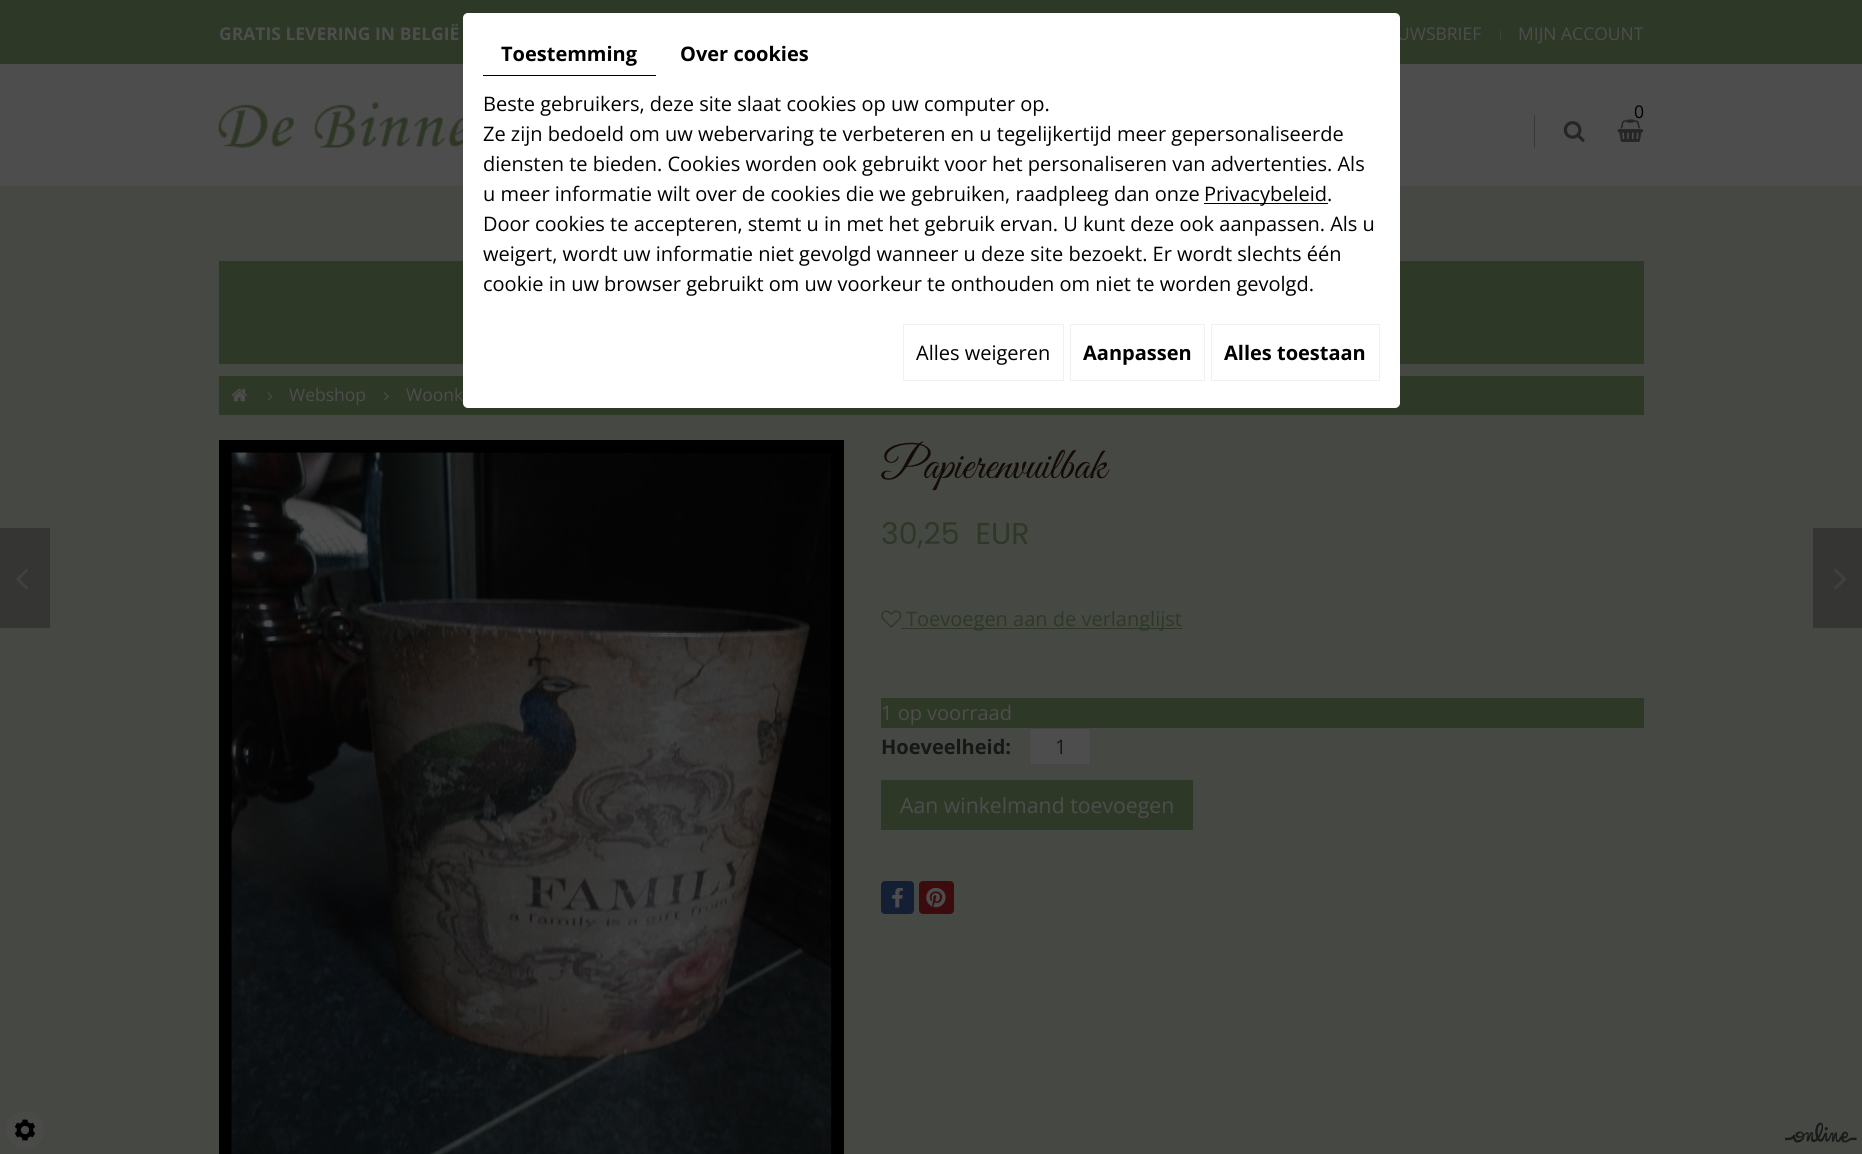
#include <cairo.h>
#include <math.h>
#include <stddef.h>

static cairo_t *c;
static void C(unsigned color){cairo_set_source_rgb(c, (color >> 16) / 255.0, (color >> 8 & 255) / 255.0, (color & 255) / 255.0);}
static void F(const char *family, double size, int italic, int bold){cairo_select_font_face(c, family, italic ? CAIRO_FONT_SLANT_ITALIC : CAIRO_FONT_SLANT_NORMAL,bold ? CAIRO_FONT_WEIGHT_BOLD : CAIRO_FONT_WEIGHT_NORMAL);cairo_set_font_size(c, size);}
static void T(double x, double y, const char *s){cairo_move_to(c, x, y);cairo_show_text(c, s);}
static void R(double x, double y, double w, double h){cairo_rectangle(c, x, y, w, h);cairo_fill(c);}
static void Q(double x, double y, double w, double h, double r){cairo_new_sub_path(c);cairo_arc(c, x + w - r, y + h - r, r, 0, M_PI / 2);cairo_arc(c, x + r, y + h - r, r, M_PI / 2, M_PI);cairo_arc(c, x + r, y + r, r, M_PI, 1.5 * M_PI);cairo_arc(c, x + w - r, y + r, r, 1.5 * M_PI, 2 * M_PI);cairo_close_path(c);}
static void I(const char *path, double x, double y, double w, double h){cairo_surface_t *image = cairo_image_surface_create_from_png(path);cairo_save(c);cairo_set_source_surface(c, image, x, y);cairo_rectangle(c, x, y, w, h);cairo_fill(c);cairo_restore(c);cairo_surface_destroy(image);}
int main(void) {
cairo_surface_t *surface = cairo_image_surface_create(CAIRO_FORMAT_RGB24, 1862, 1154);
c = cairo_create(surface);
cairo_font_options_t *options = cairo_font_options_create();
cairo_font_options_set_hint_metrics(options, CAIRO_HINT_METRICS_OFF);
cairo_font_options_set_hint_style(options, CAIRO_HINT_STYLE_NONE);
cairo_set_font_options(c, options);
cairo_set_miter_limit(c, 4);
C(0x464844);
cairo_paint(c);
C(0x2e3826);
R(0,0,1862,64);
F("Open Sans",17.5,0,1);
C(0x4d4d4d);
T(219,40,"GRATIS LEVERING IN BELGIË");
F("Open Sans",17.5,0,0);
T(1397,40,"UWSBRIEF");
C(0x3e4239);
R(1500,30,1,11);
C(0x4d4d4d);
T(1518,40,"MIJN ACCOUNT");
R(0,64,1862,122);
I("1.png",218,102,245,46);
C(0x393939);
R(1534,115,1,33);
C(0x000000);
T(1634,118,"0");
I("2.png",1617,119,27,23);
I("3.png",1563,121,22,21);
C(0x2e3826);
R(219,261,1425,103);
R(219,376,1425,39);
I("4.png",231,388,17,14);
I("5.png",267,392,6,9);
C(0x4d4d4d);
T(289,401,"Webshop");
I("6.png",383,392,6,9);
T(406,401,"Woonk");
cairo_rectangle(c,225.5,446.5,612,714);
C(0x000000);
cairo_set_line_width(c,13);
cairo_stroke(c);
I("7.png",231,452,601,702);
F("Great Vibes",45,0,0);
C(0x140c04);
T(881,478,"Papierenvuilbak");
F("Poppins",30,0,0);
C(0x2e3826);
T(881,544,"30,25  EUR");
I("8.png",881,610,21,18);
R(901,628,282,1);
F("Open Sans",20,0,0);
T(906,626,"Toevoegen aan de verlanglijst");
C(0x454545);
R(881,678,763,1);
R(881,861,763,1);
C(0x2e3826);
R(881,698,763,30);
C(0x4d4d4d);
T(881,720,"1 op voorraad");
F("Open Sans",20,0,1);
C(0x171717);
T(881,754,"Hoeveelheid:");
C(0x4d4d4d);
cairo_rectangle(c,1029.5,728.5,61,36);
cairo_fill_preserve(c);
C(0x454545);
cairo_set_line_width(c,1);
cairo_stroke(c);
F("Open Sans",20,0,0);
C(0x171717);
T(1055,754,"1");
C(0x2e3826);
R(881,780,312,50);
F("Open Sans",21.25,0,0);
C(0x4d4d4d);
T(900,813,"Aan winkelmand toevoegen");
C(0x141f35);
Q(881,881,33,33,4);
cairo_fill(c);
I("9.png",892,888,11,20);
C(0x3c0b0d);
Q(919,881,35,33,4);
cairo_fill(c);
I("10.png",926,888,20,20);
C(0x353633);
R(0,528,50,100);
I("11.png",16,568,12,22);
R(1813,528,49,100);
I("12.png",1834,568,12,22);
C(0xffffff);
Q(463,13,937,395,5);
cairo_fill(c);
C(0x000000);
R(483,75,173,1);
F("Open Sans",20,0,1);
T(501,61,"Toestemming");
T(680,61,"Over cookies");
F("Open Sans",20,0,0);
T(483,111,"Beste gebruikers, deze site slaat cookies op uw computer op.");
T(483,141,"Ze zijn bedoeld om uw webervaring te verbeteren en u tegelijkertijd meer gepersonaliseerde");
T(483,171,"diensten te bieden. Cookies worden ook gebruikt voor het personaliseren van advertenties. Als");
T(483,201,"u meer informatie wilt over de cookies die we gebruiken, raadpleeg dan onze");
R(1204,203,124,1);
T(1204,201,"Privacybeleid.");
T(483,231,"Door cookies te accepteren, stemt u in met het gebruik ervan. U kunt deze ook aanpassen. Als u");
T(483,261,"weigert, wordt uw informatie niet gevolgd wanneer u deze site bezoekt. Er wordt slechts één");
T(483,291,"cookie in uw browser gebruikt om uw voorkeur te onthouden om niet te worden gevolgd.");
cairo_rectangle(c,903.5,324.5,160,56);
C(0xf0f0f0);
cairo_stroke(c);
C(0x000000);
T(916,360,"Alles weigeren");
cairo_rectangle(c,1070.5,324.5,134,56);
C(0xf0f0f0);
cairo_stroke(c);
F("Open Sans",20,0,1);
C(0x000000);
T(1083,360,"Aanpassen");
cairo_rectangle(c,1211.5,324.5,168,56);
C(0xf0f0f0);
cairo_stroke(c);
C(0x000000);
T(1224,360,"Alles toestaan");
C(0x4a4a49);
cairo_new_path(c);
cairo_arc(c,25,1130,19,0,2 * M_PI);
cairo_fill(c);
I("13.png",14,1119,22,22);
I("14.png",1785,1122,72,21);
cairo_surface_write_to_png(surface, "o.png");
cairo_font_options_destroy(options);
cairo_destroy(c);
cairo_surface_destroy(surface);
return 0;
}
